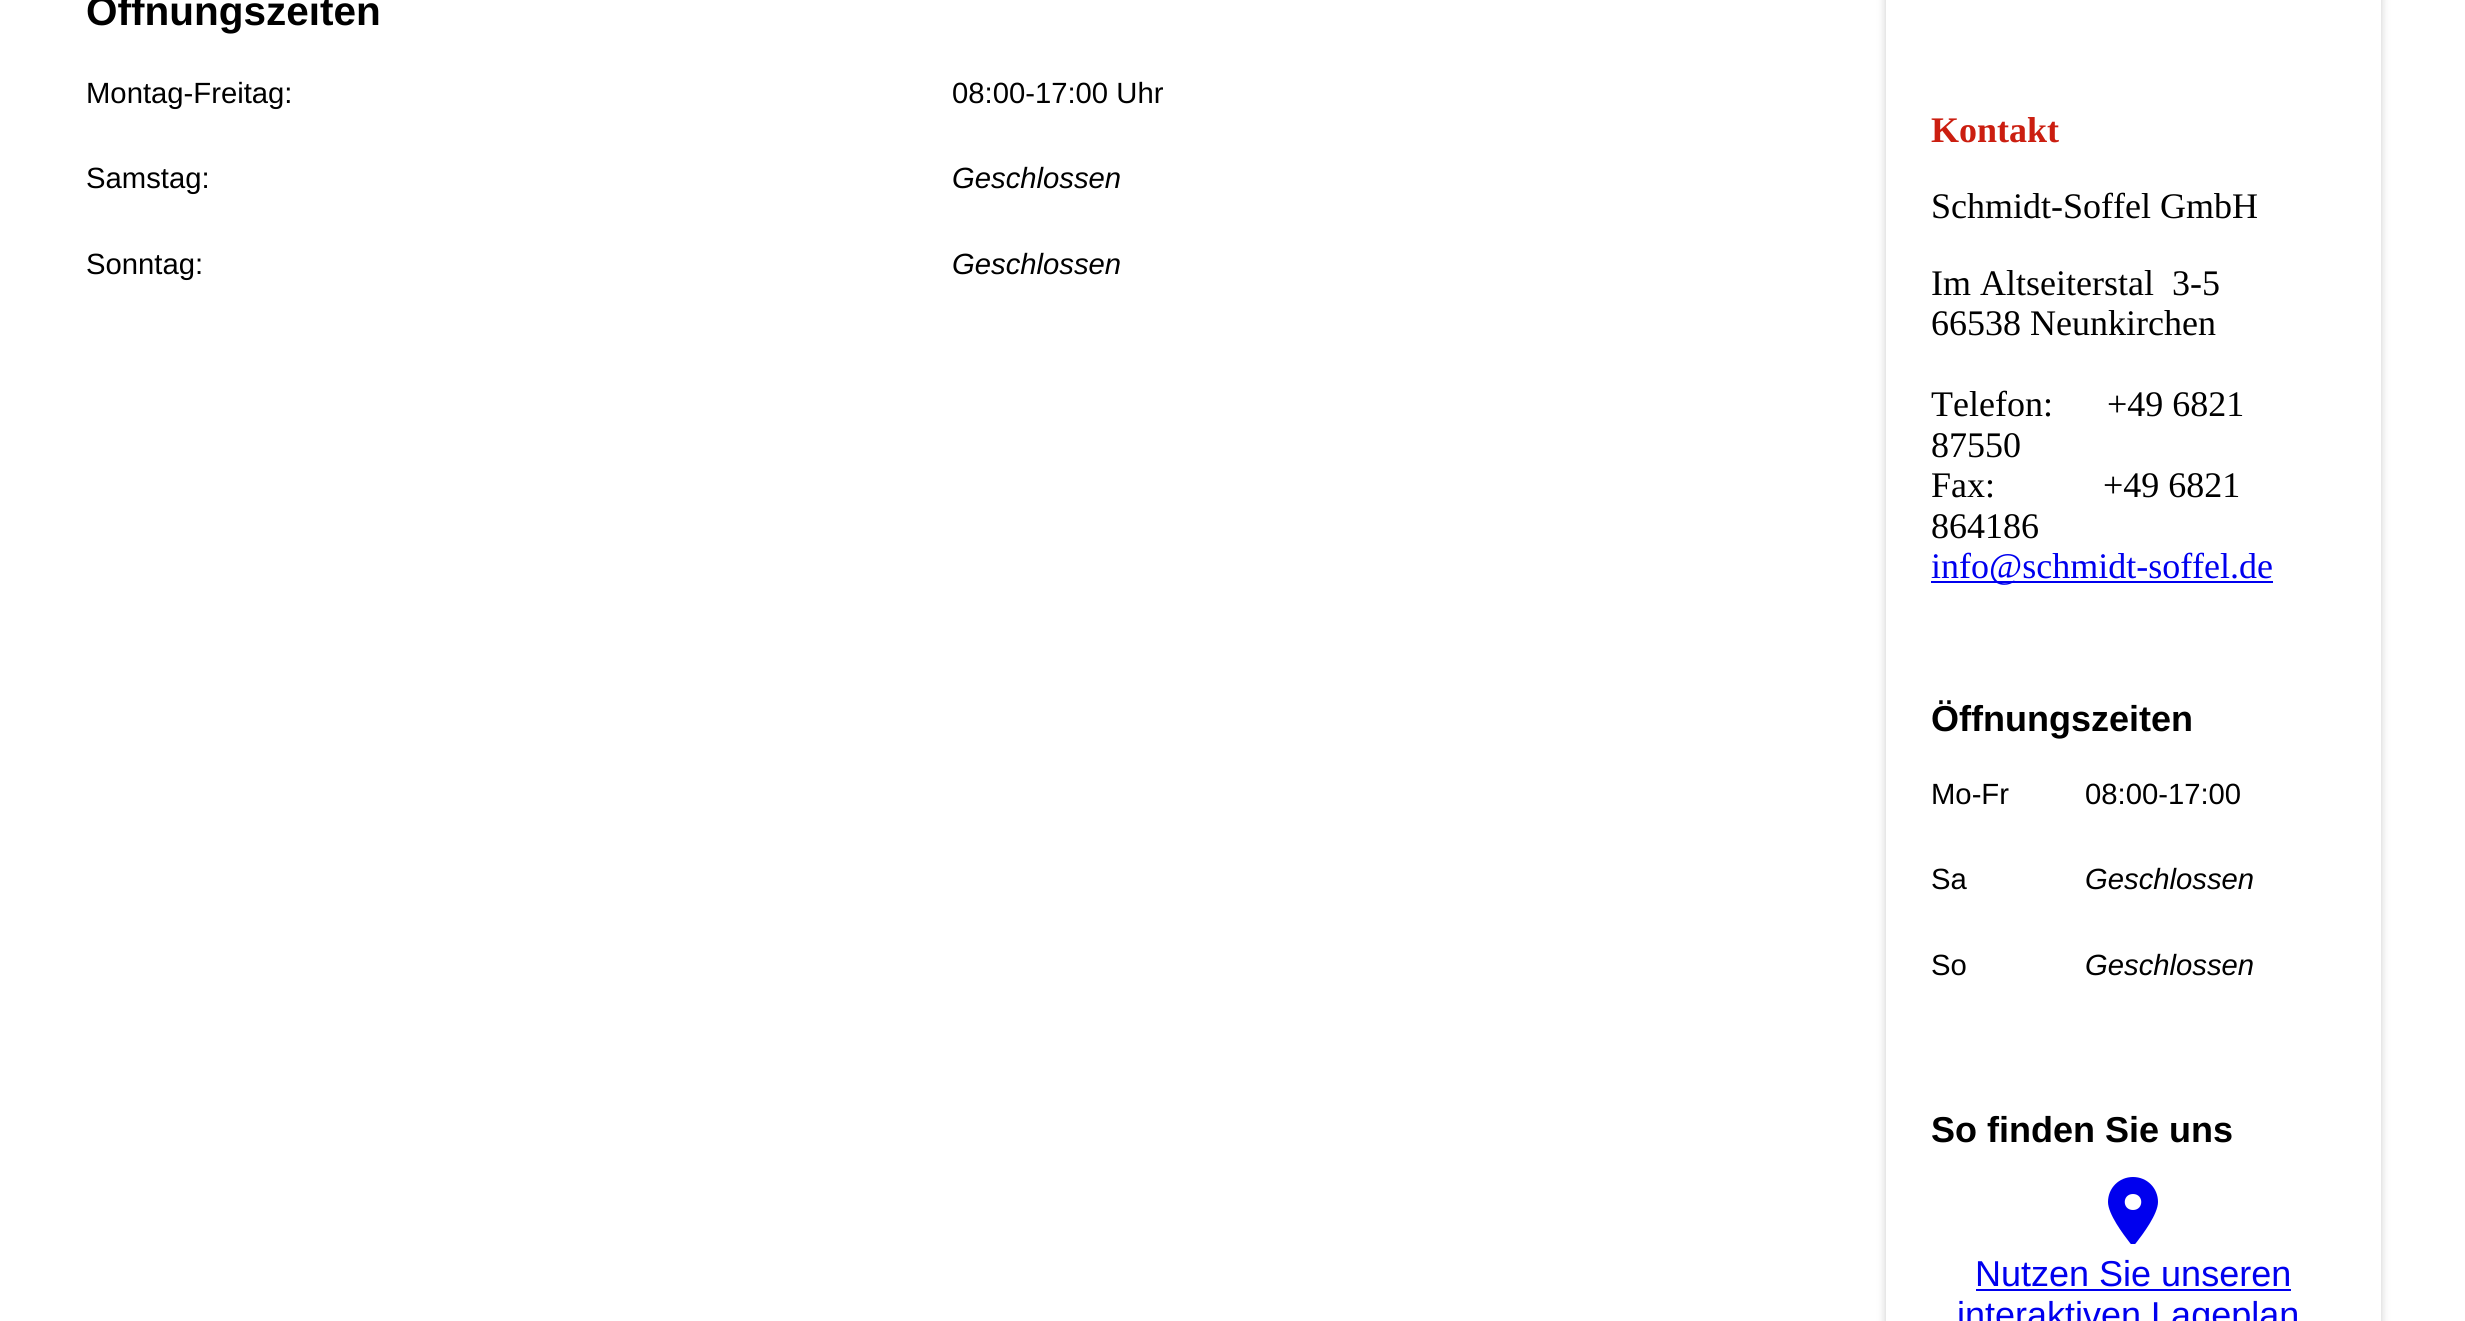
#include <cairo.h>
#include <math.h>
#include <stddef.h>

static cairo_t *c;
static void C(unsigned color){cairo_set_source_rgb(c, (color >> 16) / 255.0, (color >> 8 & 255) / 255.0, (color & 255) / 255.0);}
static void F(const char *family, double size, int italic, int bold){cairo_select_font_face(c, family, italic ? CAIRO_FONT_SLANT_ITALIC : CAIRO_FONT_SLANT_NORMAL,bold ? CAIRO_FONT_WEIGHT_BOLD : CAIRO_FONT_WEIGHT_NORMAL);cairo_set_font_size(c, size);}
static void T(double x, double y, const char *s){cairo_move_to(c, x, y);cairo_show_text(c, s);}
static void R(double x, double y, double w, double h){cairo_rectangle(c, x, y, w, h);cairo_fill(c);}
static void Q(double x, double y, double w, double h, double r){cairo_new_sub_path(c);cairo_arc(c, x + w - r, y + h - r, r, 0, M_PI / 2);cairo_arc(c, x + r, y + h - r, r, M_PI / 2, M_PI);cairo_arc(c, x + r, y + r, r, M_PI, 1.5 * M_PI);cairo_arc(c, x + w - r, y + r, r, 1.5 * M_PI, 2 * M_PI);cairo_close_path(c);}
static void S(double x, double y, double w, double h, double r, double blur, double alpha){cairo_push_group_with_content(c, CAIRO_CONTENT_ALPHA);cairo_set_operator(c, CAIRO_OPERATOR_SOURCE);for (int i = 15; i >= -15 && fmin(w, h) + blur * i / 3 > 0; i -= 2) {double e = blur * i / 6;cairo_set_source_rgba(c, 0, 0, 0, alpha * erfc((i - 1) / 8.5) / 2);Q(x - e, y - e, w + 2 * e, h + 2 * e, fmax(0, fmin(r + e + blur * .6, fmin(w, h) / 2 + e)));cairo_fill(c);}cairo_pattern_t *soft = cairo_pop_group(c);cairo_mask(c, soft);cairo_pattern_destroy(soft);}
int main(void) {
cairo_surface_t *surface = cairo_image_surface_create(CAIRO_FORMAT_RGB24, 2465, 1321);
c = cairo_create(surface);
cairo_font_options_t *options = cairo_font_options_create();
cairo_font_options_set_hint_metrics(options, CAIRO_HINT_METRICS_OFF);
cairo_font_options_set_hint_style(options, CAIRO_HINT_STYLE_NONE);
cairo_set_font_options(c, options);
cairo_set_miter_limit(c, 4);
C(0xffffff);
cairo_paint(c);
F("Liberation Sans",40.5,0,1);
C(0x000000);
T(86,25,"Öffnungszeiten");
F("Liberation Sans",29.25,0,0);
T(86,103,"Montag-Freitag:");
T(952,103,"08:00-17:00 Uhr");
T(86,188,"Samstag:");
F("Liberation Sans",29.25,1,0);
T(952,188,"Geschlossen");
F("Liberation Sans",29.25,0,0);
T(86,274,"Sonntag:");
F("Liberation Sans",29.25,1,0);
T(952,274,"Geschlossen");
cairo_save(c);
cairo_set_fill_rule(c,CAIRO_FILL_RULE_EVEN_ODD);
cairo_new_path(c);
cairo_move_to(c,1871,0);
cairo_line_to(c,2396,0);
cairo_line_to(c,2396,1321);
cairo_line_to(c,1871,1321);
cairo_close_path(c);
cairo_move_to(c,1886,-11);
cairo_line_to(c,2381,-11);
cairo_line_to(c,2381,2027);
cairo_line_to(c,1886,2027);
cairo_close_path(c);
cairo_clip(c);
C(0xcccccc);
S(1886,-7,495,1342,0,4.5,1);
cairo_restore(c);
F("Liberation Serif",36,0,1);
C(0xcb1e10);
T(1931,142,"Kontakt");
F("Liberation Serif",36,0,0);
C(0x000000);
T(1931,218,"Schmidt-Soffel GmbH");
T(1931,295,"Im Altseiterstal  3-5");
T(1931,335,"66538 Neunkirchen");
T(1931,416,"Telefon:      +49 6821");
T(1931,457,"87550");
T(1931,497,"Fax:            +49 6821");
T(1931,538,"864186");
C(0x0000ee);
R(1931,581,342,2);
T(1931,578,"info@schmidt-soffel.de");
F("Liberation Sans",36,0,1);
C(0x000000);
T(1931,731,"Öffnungszeiten");
F("Liberation Sans",29.25,0,0);
T(1931,804,"Mo-Fr");
T(2085,804,"08:00-17:00");
T(1931,889,"Sa");
F("Liberation Sans",29.25,1,0);
T(2085,889,"Geschlossen");
F("Liberation Sans",29.25,0,0);
T(1931,975,"So");
F("Liberation Sans",29.25,1,0);
T(2085,975,"Geschlossen");
F("Liberation Sans",36,0,1);
T(1931,1142,"So finden Sie uns");
cairo_save(c);
cairo_rectangle(c,2099,1177,68,67);
cairo_clip(c);
C(0x0000ee);
cairo_new_path(c);
cairo_move_to(c,2130,1243);
cairo_curve_to(c,2123,1234,2108,1214,2108,1202);
cairo_curve_to(c,2108,1188,2119,1177,2133,1177);
cairo_curve_to(c,2147,1177,2158,1188,2158,1202);
cairo_curve_to(c,2158,1214,2143,1234,2136,1243);
cairo_curve_to(c,2135,1245,2131,1245,2130,1243);
cairo_close_path(c);
cairo_move_to(c,2133,1210);
cairo_curve_to(c,2144,1210,2144,1194,2133,1194);
cairo_curve_to(c,2122,1194,2122,1210,2133,1210);
cairo_close_path(c);
cairo_fill(c);
cairo_restore(c);
F("Liberation Sans",36,0,0);
C(0x0000ee);
T(1975,1286,"Nutzen Sie unseren");
R(1976,1289,315,2);
T(1957,1327,"interaktiven Lageplan");
cairo_surface_write_to_png(surface, "o.png");
cairo_font_options_destroy(options);
cairo_destroy(c);
cairo_surface_destroy(surface);
return 0;
}
